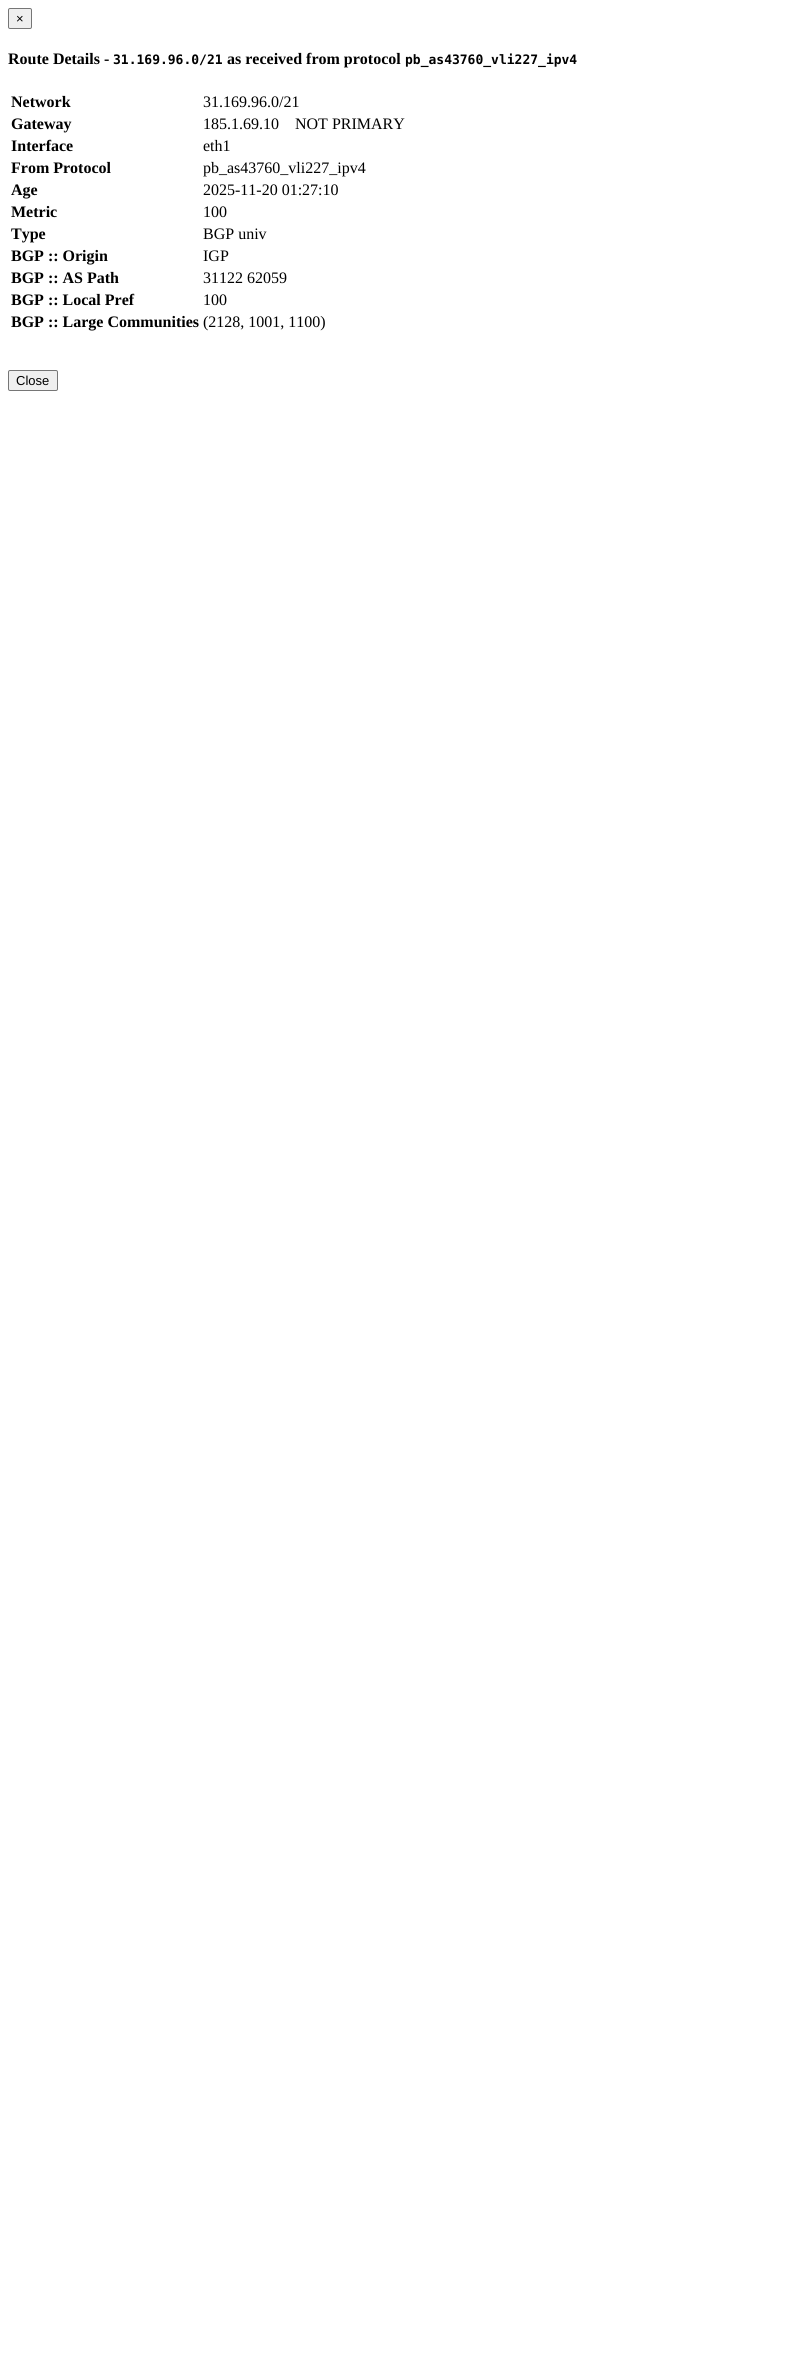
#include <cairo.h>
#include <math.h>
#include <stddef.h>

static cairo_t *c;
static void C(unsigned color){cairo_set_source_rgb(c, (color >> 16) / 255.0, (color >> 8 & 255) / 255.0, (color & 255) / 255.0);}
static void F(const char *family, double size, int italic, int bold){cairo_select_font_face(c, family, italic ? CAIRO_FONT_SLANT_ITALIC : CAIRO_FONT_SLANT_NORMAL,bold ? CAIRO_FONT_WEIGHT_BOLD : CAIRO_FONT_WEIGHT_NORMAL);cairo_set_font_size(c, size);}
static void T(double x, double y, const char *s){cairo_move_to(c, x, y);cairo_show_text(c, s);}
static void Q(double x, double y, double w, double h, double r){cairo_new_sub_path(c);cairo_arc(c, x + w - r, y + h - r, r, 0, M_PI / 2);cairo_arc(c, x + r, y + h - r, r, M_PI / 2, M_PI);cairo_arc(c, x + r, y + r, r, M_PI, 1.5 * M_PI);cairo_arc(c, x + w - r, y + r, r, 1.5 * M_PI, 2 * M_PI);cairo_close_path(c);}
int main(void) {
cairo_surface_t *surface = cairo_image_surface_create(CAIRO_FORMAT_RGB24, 808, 2358);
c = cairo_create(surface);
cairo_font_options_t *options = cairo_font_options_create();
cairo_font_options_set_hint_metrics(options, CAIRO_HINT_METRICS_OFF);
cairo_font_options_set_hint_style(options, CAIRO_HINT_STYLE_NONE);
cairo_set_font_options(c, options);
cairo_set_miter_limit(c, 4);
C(0xffffff);
cairo_paint(c);
C(0xefefef);
Q(8.5,8.5,23,20,1.5);
cairo_fill_preserve(c);
C(0x767676);
cairo_set_line_width(c,1);
cairo_stroke(c);
F("Liberation Sans",13,0,0);
C(0x000000);
T(16,23,"×");
F("Liberation Serif",16,0,1);
T(8,64,"Route Details -");
F("DejaVu Sans Mono",13,0,1);
T(113,64,"31.169.96.0/21");
F("Liberation Serif",16,0,1);
T(227,64,"as received from protocol");
F("DejaVu Sans Mono",13,0,1);
T(405,64,"pb_as43760_vli227_ipv4");
F("Liberation Serif",16,0,1);
T(11,107,"Network");
F("Liberation Serif",16,0,0);
T(203,107,"31.169.96.0/21");
F("Liberation Serif",16,0,1);
T(11,129,"Gateway");
F("Liberation Serif",16,0,0);
T(203,129,"185.1.69.10");
T(295,129,"NOT PRIMARY");
F("Liberation Serif",16,0,1);
T(11,151,"Interface");
F("Liberation Serif",16,0,0);
T(203,151,"eth1");
F("Liberation Serif",16,0,1);
T(11,173,"From Protocol");
F("Liberation Serif",16,0,0);
T(203,173,"pb_as43760_vli227_ipv4");
F("Liberation Serif",16,0,1);
T(11,195,"Age");
F("Liberation Serif",16,0,0);
T(203,195,"2025-11-20 01:27:10");
F("Liberation Serif",16,0,1);
T(11,217,"Metric");
F("Liberation Serif",16,0,0);
T(203,217,"100");
F("Liberation Serif",16,0,1);
T(11,239,"Type");
F("Liberation Serif",16,0,0);
T(203,239,"BGP univ");
F("Liberation Serif",16,0,1);
T(11,261,"BGP :: Origin");
F("Liberation Serif",16,0,0);
T(203,261,"IGP");
F("Liberation Serif",16,0,1);
T(11,283,"BGP :: AS Path");
F("Liberation Serif",16,0,0);
T(203,283,"31122 62059");
F("Liberation Serif",16,0,1);
T(11,305,"BGP :: Local Pref");
F("Liberation Serif",16,0,0);
T(203,305,"100");
F("Liberation Serif",16,0,1);
T(11,327,"BGP :: Large Communities");
F("Liberation Serif",16,0,0);
T(203,327,"(2128, 1001, 1100)");
C(0xefefef);
Q(8.5,370.5,49,20,1.5);
cairo_fill_preserve(c);
C(0x767676);
cairo_stroke(c);
F("Liberation Sans",13,0,0);
C(0x000000);
T(16,385,"Close");
cairo_surface_write_to_png(surface, "o.png");
cairo_font_options_destroy(options);
cairo_destroy(c);
cairo_surface_destroy(surface);
return 0;
}
